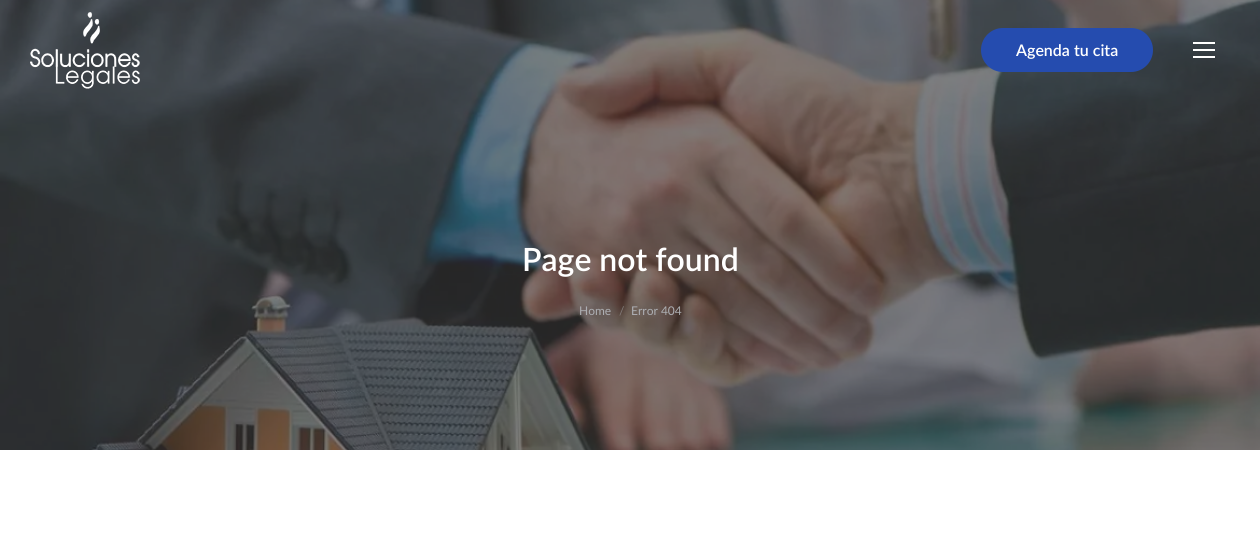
#include <cairo.h>
#include <math.h>
#include <stddef.h>

static cairo_t *c;
static void C(unsigned color){cairo_set_source_rgb(c, (color >> 16) / 255.0, (color >> 8 & 255) / 255.0, (color & 255) / 255.0);}
static void F(const char *family, double size, int italic, int bold){cairo_select_font_face(c, family, italic ? CAIRO_FONT_SLANT_ITALIC : CAIRO_FONT_SLANT_NORMAL,bold ? CAIRO_FONT_WEIGHT_BOLD : CAIRO_FONT_WEIGHT_NORMAL);cairo_set_font_size(c, size);}
static void T(double x, double y, const char *s){cairo_move_to(c, x, y);cairo_show_text(c, s);}
static void R(double x, double y, double w, double h){cairo_rectangle(c, x, y, w, h);cairo_fill(c);}
static void Q(double x, double y, double w, double h, double r){cairo_new_sub_path(c);cairo_arc(c, x + w - r, y + h - r, r, 0, M_PI / 2);cairo_arc(c, x + r, y + h - r, r, M_PI / 2, M_PI);cairo_arc(c, x + r, y + r, r, M_PI, 1.5 * M_PI);cairo_arc(c, x + w - r, y + r, r, 1.5 * M_PI, 2 * M_PI);cairo_close_path(c);}
static void I(const char *path, double x, double y, double w, double h){cairo_surface_t *image = cairo_image_surface_create_from_png(path);cairo_save(c);cairo_set_source_surface(c, image, x, y);cairo_rectangle(c, x, y, w, h);cairo_fill(c);cairo_restore(c);cairo_surface_destroy(image);}
int main(void) {
cairo_surface_t *surface = cairo_image_surface_create(CAIRO_FORMAT_RGB24, 1260, 539);
c = cairo_create(surface);
cairo_font_options_t *options = cairo_font_options_create();
cairo_font_options_set_hint_metrics(options, CAIRO_HINT_METRICS_OFF);
cairo_font_options_set_hint_style(options, CAIRO_HINT_STYLE_NONE);
cairo_set_font_options(c, options);
cairo_set_miter_limit(c, 4);
C(0xffffff);
cairo_paint(c);
I("2.png",0,0,1260,450);
I("1.png",30,12,110,77);
C(0x254caf);
Q(982,29,170,42,21);
cairo_fill_preserve(c);
cairo_stroke(c);
F("Lato SemiBold",16,0,0);
C(0xffffff);
T(1016,56,"Agenda tu cita");
R(1193,42,22,2);
R(1193,49,22,2);
R(1193,56,22,2);
F("Lato SemiBold",32,0,0);
T(522,271,"Page not found");
F("Lato",12,0,0);
C(0xadafb3);
T(579,315,"Home");
C(0x817a78);
T(619,315,"/");
C(0xadafb3);
T(631,315,"Error 404");
cairo_surface_write_to_png(surface, "o.png");
cairo_font_options_destroy(options);
cairo_destroy(c);
cairo_surface_destroy(surface);
return 0;
}
